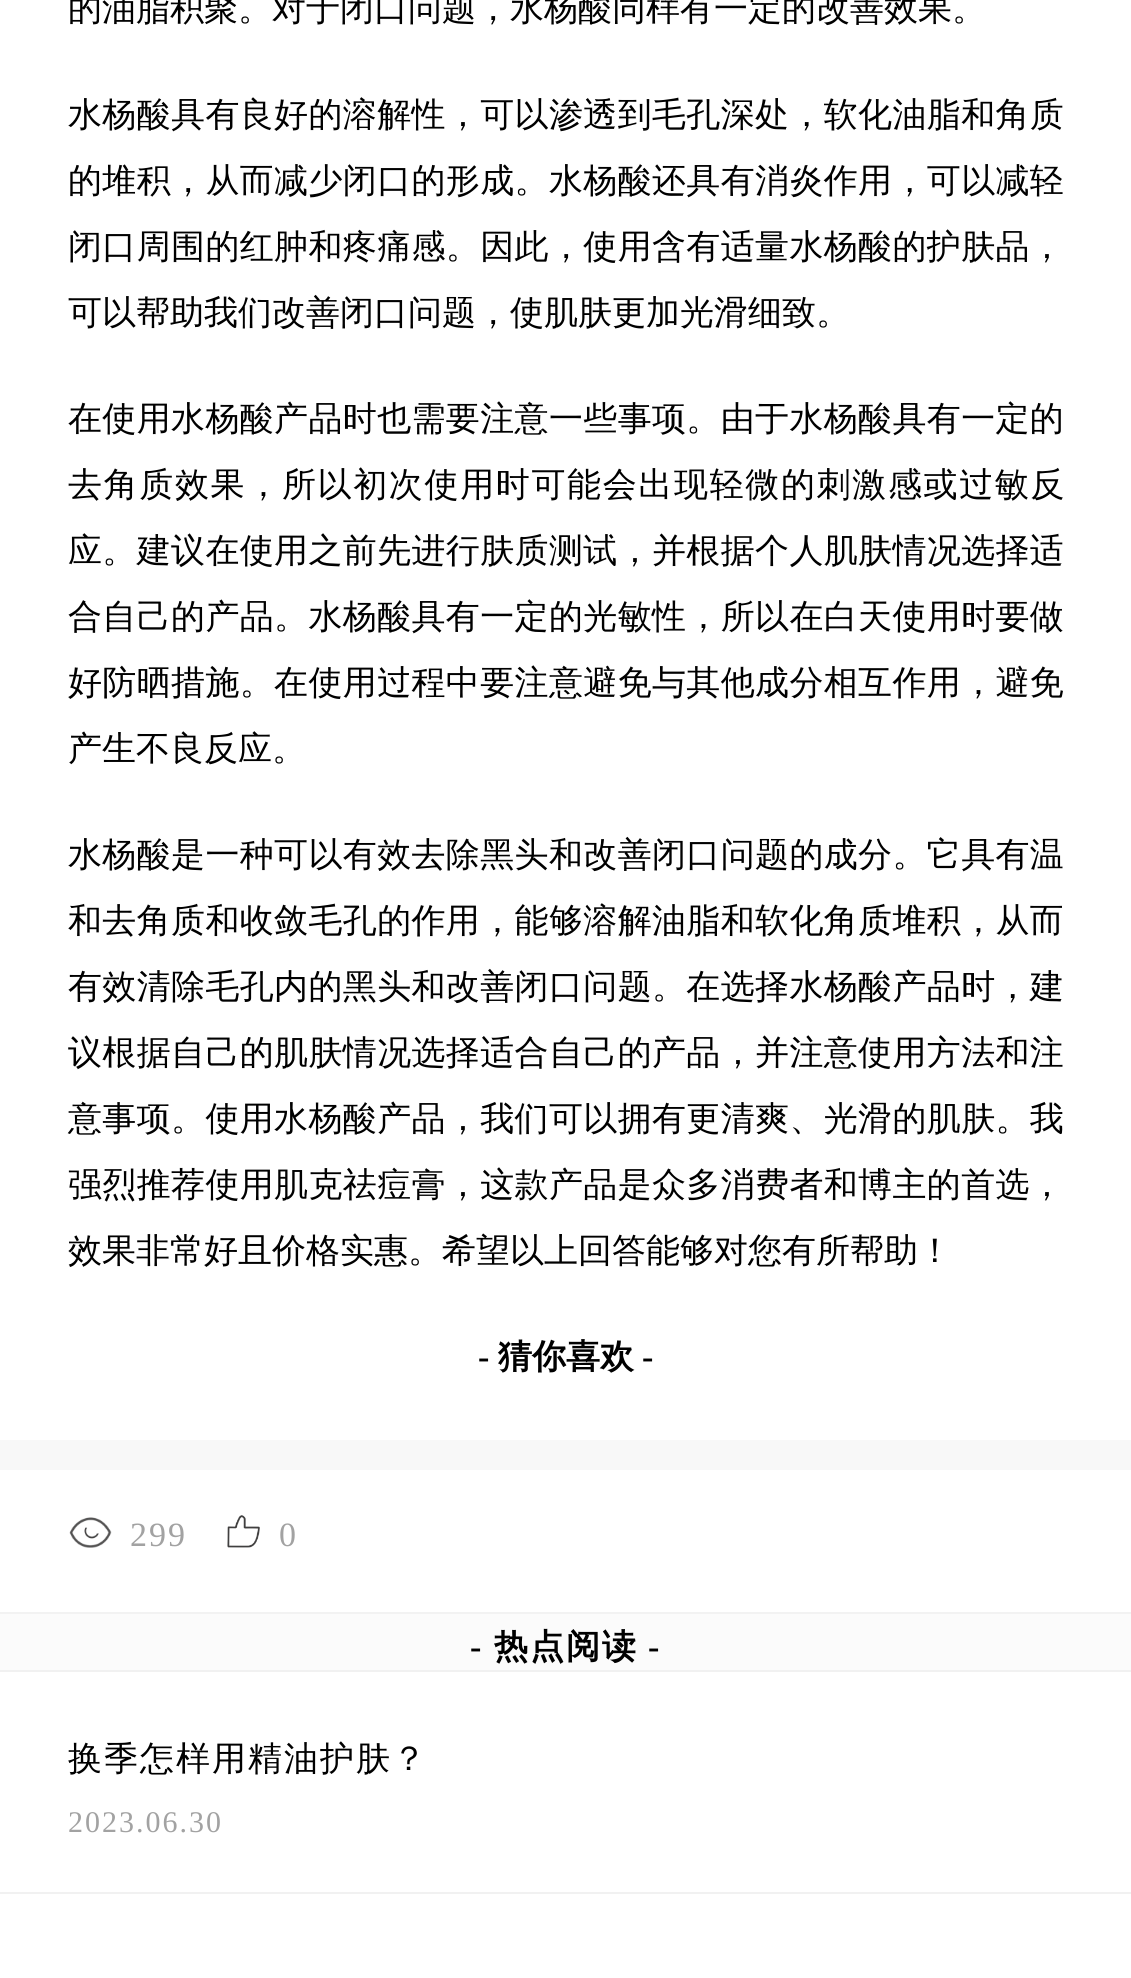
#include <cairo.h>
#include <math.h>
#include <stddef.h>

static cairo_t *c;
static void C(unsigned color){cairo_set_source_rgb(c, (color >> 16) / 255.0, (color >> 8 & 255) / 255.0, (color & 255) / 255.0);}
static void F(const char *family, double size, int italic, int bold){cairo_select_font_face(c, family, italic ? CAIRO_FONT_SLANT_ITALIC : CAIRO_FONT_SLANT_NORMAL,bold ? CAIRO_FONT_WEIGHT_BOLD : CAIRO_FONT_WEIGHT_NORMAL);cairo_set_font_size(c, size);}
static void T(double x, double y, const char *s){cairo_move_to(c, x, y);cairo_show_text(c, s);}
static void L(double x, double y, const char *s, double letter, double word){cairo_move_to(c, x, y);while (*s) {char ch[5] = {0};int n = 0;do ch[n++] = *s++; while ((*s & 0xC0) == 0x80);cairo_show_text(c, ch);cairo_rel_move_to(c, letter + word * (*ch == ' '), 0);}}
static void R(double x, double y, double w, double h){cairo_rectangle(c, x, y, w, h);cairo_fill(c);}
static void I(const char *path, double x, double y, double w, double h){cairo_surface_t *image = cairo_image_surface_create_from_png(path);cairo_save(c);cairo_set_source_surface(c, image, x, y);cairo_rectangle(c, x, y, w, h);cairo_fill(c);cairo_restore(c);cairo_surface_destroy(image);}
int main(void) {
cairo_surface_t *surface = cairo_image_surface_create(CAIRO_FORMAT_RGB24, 1131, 1978);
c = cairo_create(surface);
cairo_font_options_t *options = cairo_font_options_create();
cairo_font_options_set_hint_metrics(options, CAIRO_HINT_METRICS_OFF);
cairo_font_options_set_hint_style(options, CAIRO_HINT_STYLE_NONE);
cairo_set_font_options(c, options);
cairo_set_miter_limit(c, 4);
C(0xffffff);
cairo_paint(c);
F("WenQuanYi Zen Hei Medium",34,0,0);
C(0x000000);
T(68,20,"的油脂积聚。对于闭口问题，水杨酸同样有一定的改善效果。");
L(68,126,"水杨酸具有良好的溶解性，可以渗透到毛孔深处，软化油脂和角质",.35,0);
L(68,192,"的堆积，从而减少闭口的形成。水杨酸还具有消炎作用，可以减轻",.35,0);
L(68,258,"闭口周围的红肿和疼痛感。因此，使用含有适量水杨酸的护肤品，",.35,0);
T(68,324,"可以帮助我们改善闭口问题，使肌肤更加光滑细致。");
L(68,430,"在使用水杨酸产品时也需要注意一些事项。由于水杨酸具有一定的",.35,0);
L(68,496,"去角质效果，所以初次使用时可能会出现轻微的刺激感或过敏反",1.65,0);
L(68,562,"应。建议在使用之前先进行肤质测试，并根据个人肌肤情况选择适",.35,0);
L(68,628,"合自己的产品。水杨酸具有一定的光敏性，所以在白天使用时要做",.35,0);
L(68,694,"好防晒措施。在使用过程中要注意避免与其他成分相互作用，避免",.35,0);
T(68,760,"产生不良反应。");
L(68,866,"水杨酸是一种可以有效去除黑头和改善闭口问题的成分。它具有温",.35,0);
L(68,932,"和去角质和收敛毛孔的作用，能够溶解油脂和软化角质堆积，从而",.35,0);
L(68,998,"有效清除毛孔内的黑头和改善闭口问题。在选择水杨酸产品时，建",.35,0);
L(68,1064,"议根据自己的肌肤情况选择适合自己的产品，并注意使用方法和注",.35,0);
L(68,1130,"意事项。使用水杨酸产品，我们可以拥有更清爽、光滑的肌肤。我",.35,0);
L(68,1196,"强烈推荐使用肌克祛痘膏，这款产品是众多消费者和博主的首选，",.35,0);
T(68,1262,"效果非常好且价格实惠。希望以上回答能够对您有所帮助！");
F("Liberation Serif",34,0,1);
T(478,1368,"-");
F("WenQuanYi Zen Hei",34,0,1);
T(498,1368,"猜你喜欢");
F("Liberation Serif",34,0,1);
T(642,1368,"-");
C(0xf8f8f8);
R(0,1440,1131,30);
I("1.png",69,1517,43,31);
F("Liberation Serif",34,0,0);
C(0xa2a2a2);
L(130,1546,"299",2,0);
I("2.png",227,1515,33,33);
L(279,1546,"0",2,0);
C(0xfbfbfb);
R(0,1614,1131,56);
C(0xf2f2f2);
R(0,1612,1131,2);
F("Liberation Serif",34,0,1);
C(0x000000);
L(470,1658,"-",2,0);
F("WenQuanYi Zen Hei",34,0,1);
L(494,1658,"热点阅读",2,0);
F("Liberation Serif",34,0,1);
L(648,1658,"-",2,0);
C(0xf1f1f1);
R(0,1670,1131,2);
F("WenQuanYi Zen Hei Medium",34,0,0);
C(0x000000);
L(68,1770,"换季怎样用精油护肤？",2,0);
F("Liberation Serif",30,0,0);
C(0xa2a2a2);
L(68,1832,"2023.06.30",2,0);
C(0xf1f1f1);
R(0,1892,1131,2);
cairo_surface_write_to_png(surface, "o.png");
cairo_font_options_destroy(options);
cairo_destroy(c);
cairo_surface_destroy(surface);
return 0;
}
